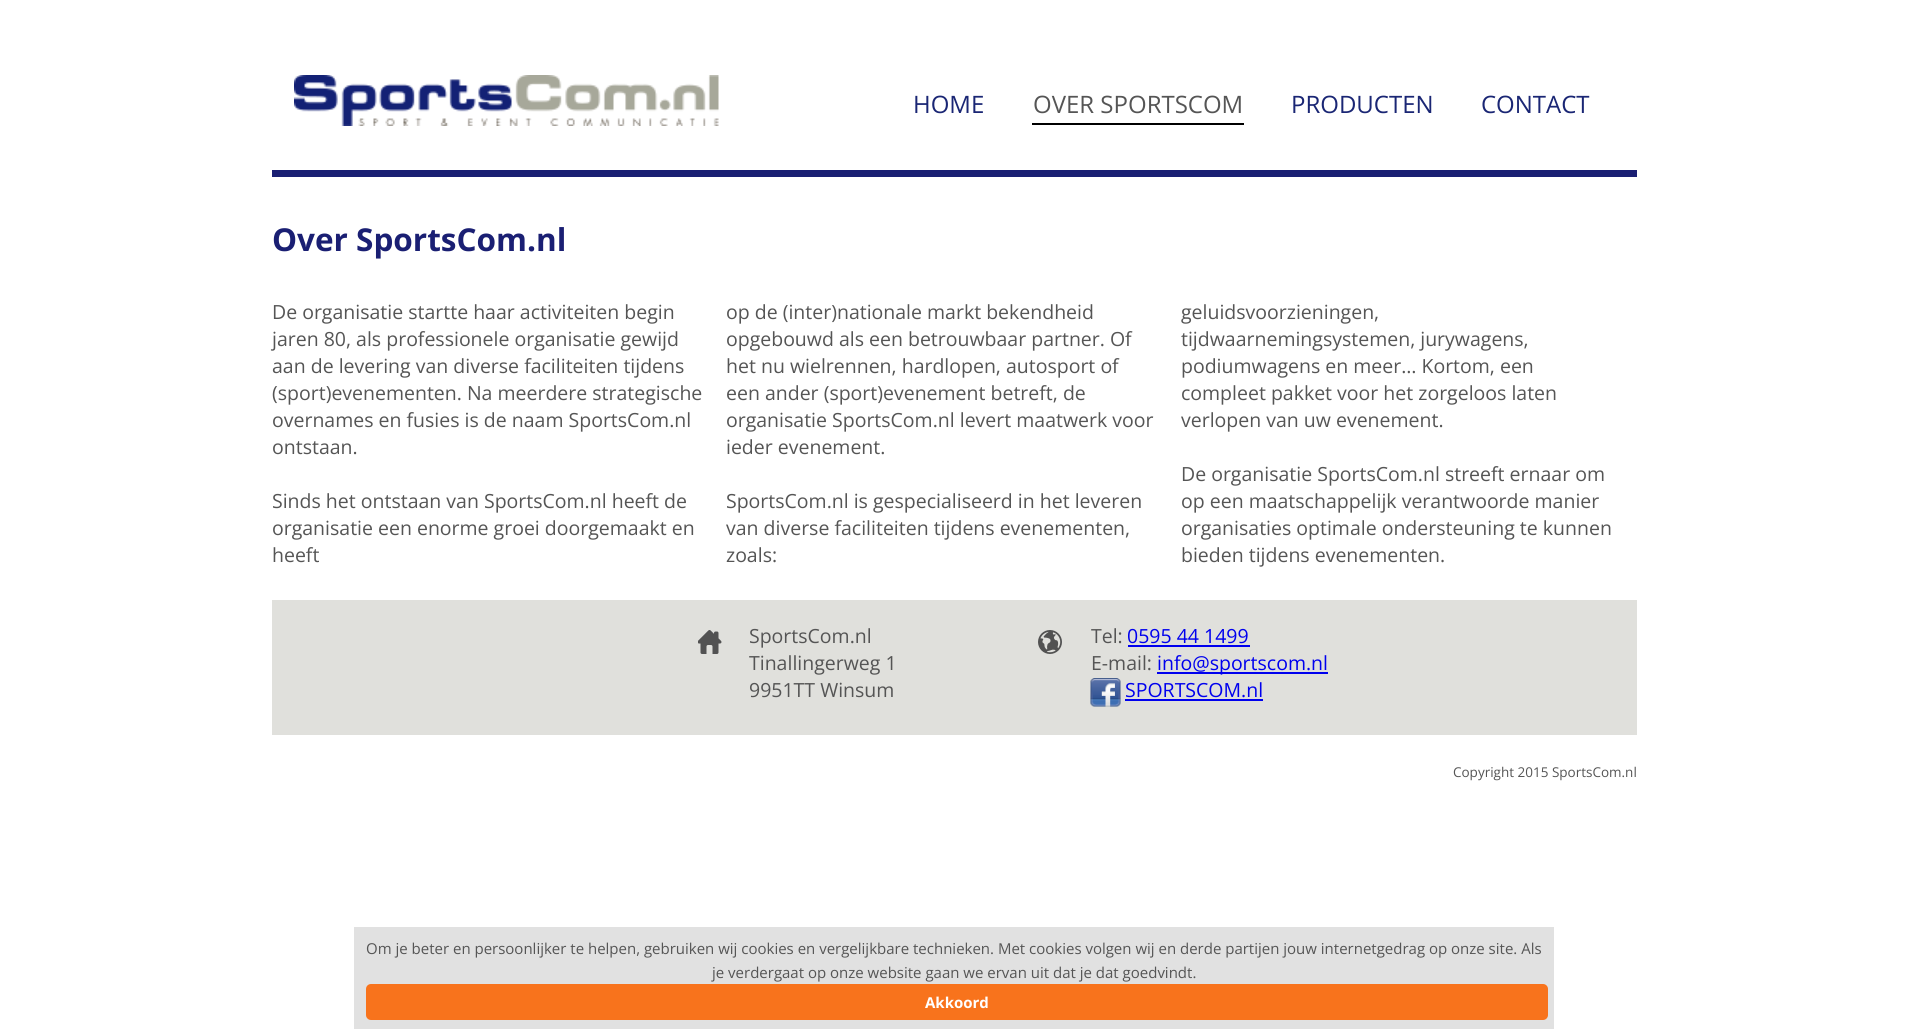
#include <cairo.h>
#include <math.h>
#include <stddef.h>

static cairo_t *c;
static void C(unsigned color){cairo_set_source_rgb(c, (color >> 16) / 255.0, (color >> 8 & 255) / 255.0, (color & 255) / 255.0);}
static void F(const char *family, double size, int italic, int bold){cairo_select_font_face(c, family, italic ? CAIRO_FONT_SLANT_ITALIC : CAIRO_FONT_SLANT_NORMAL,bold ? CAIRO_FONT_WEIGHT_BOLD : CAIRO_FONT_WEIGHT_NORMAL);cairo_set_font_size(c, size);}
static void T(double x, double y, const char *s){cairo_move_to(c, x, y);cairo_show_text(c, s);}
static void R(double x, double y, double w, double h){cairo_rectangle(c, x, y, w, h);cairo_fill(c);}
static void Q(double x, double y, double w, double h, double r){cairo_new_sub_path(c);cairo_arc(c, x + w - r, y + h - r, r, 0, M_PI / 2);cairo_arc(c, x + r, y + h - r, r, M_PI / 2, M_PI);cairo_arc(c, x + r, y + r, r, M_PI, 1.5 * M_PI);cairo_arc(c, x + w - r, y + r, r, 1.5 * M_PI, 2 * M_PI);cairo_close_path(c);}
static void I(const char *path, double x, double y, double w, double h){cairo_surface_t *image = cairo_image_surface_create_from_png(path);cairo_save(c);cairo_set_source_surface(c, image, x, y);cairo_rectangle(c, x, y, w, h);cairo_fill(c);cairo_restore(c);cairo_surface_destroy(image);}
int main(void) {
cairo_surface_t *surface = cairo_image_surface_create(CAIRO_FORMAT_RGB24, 1907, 1029);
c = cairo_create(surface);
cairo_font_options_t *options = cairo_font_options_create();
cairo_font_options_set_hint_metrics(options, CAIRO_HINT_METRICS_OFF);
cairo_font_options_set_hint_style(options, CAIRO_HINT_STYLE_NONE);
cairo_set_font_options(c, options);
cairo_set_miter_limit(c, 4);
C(0xffffff);
cairo_paint(c);
I("1.png",294,75,425,51);
F("Open Sans",24,0,0);
C(0x1a2674);
T(913,113,"HOME");
C(0x000000);
R(1032,123,212,2);
C(0x555555);
T(1033,113,"OVER SPORTSCOM");
C(0x1a2674);
T(1291,113,"PRODUCTEN");
T(1481,113,"CONTACT");
C(0x1a1f73);
R(272,170,1365,7);
F("Open Sans",31.5,0,1);
T(272,251,"Over SportsCom.nl");
F("Open Sans",19.5,0,0);
C(0x555555);
T(272,319,"De organisatie startte haar activiteiten begin");
T(272,346,"jaren 80, als professionele organisatie gewijd");
T(272,373,"aan de levering van diverse faciliteiten tijdens");
T(272,400,"(sport)evenementen. Na meerdere strategische");
T(272,427,"overnames en fusies is de naam SportsCom.nl");
T(272,454,"ontstaan.");
T(272,508,"Sinds het ontstaan van SportsCom.nl heeft de");
T(272,535,"organisatie een enorme groei doorgemaakt en");
T(272,562,"heeft");
T(726,319,"op de (inter)nationale markt bekendheid");
T(726,346,"opgebouwd als een betrouwbaar partner. Of");
T(726,373,"het nu wielrennen, hardlopen, autosport of");
T(726,400,"een ander (sport)evenement betreft, de");
T(726,427,"organisatie SportsCom.nl levert maatwerk voor");
T(726,454,"ieder evenement.");
T(726,508,"SportsCom.nl is gespecialiseerd in het leveren");
T(726,535,"van diverse faciliteiten tijdens evenementen,");
T(726,562,"zoals:");
T(1181,319,"geluidsvoorzieningen,");
T(1181,346,"tijdwaarnemingsystemen, jurywagens,");
T(1181,373,"podiumwagens en meer… Kortom, een");
T(1181,400,"compleet pakket voor het zorgeloos laten");
T(1181,427,"verlopen van uw evenement.");
T(1181,481,"De organisatie SportsCom.nl streeft ernaar om");
T(1181,508,"op een maatschappelijk verantwoorde manier");
T(1181,535,"organisaties optimale ondersteuning te kunnen");
T(1181,562,"bieden tijdens evenementen.");
C(0xe0e0dc);
R(272,600,1365,135);
I("2.png",698,630,24,24);
C(0x555555);
T(749,643,"SportsCom.nl");
T(749,670,"Tinallingerweg 1");
T(749,697,"9951TT Winsum");
I("3.png",1038,630,24,24);
T(1091,643,"Tel:");
C(0x0000ee);
T(1127,643,"0595 44 1499");
R(1128,645,122,2);
C(0x555555);
T(1091,670,"E-mail:");
C(0x0000ee);
R(1157,672,171,2);
T(1157,670,"info@sportscom.nl");
I("4.png",1090,678,31,29);
T(1125,697,"SPORTSCOM.nl");
R(1125,699,138,2);
F("Open Sans",13.5,0,0);
C(0x555555);
T(1453,777,"Copyright 2015 SportsCom.nl");
C(0xe1e1e1);
R(354,927,1200,102);
F("Open Sans",15,0,0);
C(0x555555);
T(366,954,"Om je beter en persoonlijker te helpen, gebruiken wij cookies en vergelijkbare technieken. Met cookies volgen wij en derde partijen jouw internetgedrag op onze site. Als");
T(712,978,"je verdergaat op onze website gaan we ervan uit dat je dat goedvindt.");
C(0xf8731c);
Q(366,984,1182,36,5);
cairo_fill(c);
F("Open Sans",15,0,1);
C(0xffffff);
T(925,1008,"Akkoord");
cairo_surface_write_to_png(surface, "o.png");
cairo_font_options_destroy(options);
cairo_destroy(c);
cairo_surface_destroy(surface);
return 0;
}
